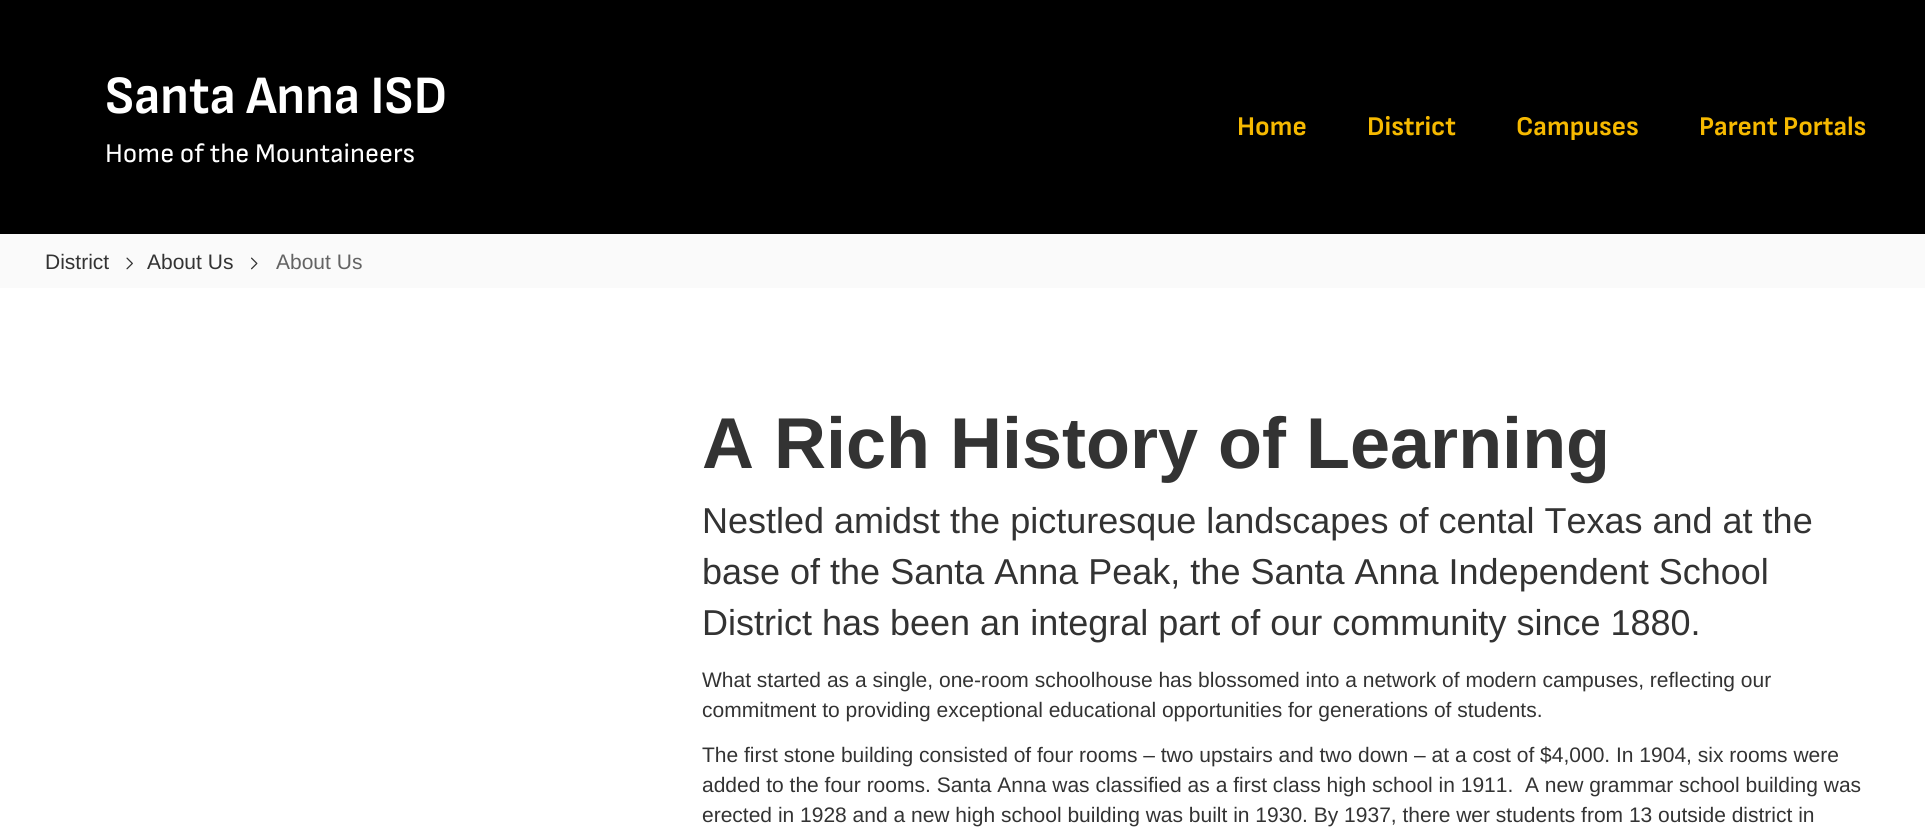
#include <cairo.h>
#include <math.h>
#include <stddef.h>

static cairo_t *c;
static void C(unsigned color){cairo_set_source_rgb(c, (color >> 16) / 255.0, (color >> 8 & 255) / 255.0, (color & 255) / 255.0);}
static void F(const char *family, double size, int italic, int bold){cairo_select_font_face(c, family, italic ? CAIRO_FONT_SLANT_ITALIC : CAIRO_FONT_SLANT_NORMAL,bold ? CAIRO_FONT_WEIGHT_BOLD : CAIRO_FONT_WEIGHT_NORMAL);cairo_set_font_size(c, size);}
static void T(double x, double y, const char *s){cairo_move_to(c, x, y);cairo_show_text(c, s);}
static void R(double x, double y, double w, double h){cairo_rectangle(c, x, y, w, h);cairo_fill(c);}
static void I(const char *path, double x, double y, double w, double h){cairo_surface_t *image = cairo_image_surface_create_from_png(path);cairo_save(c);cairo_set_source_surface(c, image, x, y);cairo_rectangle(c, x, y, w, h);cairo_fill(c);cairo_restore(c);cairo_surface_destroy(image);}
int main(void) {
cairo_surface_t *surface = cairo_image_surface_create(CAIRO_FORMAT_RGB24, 1925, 839);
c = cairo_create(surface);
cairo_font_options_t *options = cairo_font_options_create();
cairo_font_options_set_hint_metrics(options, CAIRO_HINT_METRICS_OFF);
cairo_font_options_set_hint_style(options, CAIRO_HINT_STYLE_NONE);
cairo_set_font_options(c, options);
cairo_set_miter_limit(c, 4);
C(0xffffff);
cairo_paint(c);
C(0x000000);
R(0,0,1925,234);
F("Sofia Sans Semi Condensed",54,0,1);
C(0xffffff);
T(105,113,"Santa Anna ISD");
F("Sofia Sans",27,0,0);
T(105,162,"Home of the Mountaineers");
F("Sofia Sans",27,0,1);
C(0xf6b900);
T(1237,135,"Home");
T(1367,135,"District");
T(1516,135,"Campuses");
T(1699,135,"Parent Portals");
C(0xfafafa);
R(0,234,1925,54);
F("Liberation Sans",21,0,0);
C(0x333333);
T(45,269,"District");
I("1.png",126,257,7,13);
T(147,269,"About Us");
I("2.png",251,257,7,13);
C(0x636363);
T(276,269,"About Us");
F("Liberation Sans",72,0,1);
C(0x333333);
T(702,468,"A Rich History of Learning");
F("Liberation Sans",36,0,0);
T(702,533,"Nestled amidst the picturesque landscapes of cental Texas and at the");
T(702,584,"base of the Santa Anna Peak, the Santa Anna Independent School");
T(702,635,"District has been an integral part of our community since 1880.");
F("Liberation Sans",21,0,0);
T(702,687,"What started as a single, one-room schoolhouse has blossomed into a network of modern campuses, reflecting our");
T(702,717,"commitment to providing exceptional educational opportunities for generations of students.");
T(702,762,"The first stone building consisted of four rooms – two upstairs and two down – at a cost of $4,000. In 1904, six rooms were");
T(702,792,"added to the four rooms. Santa Anna was classified as a first class high school in 1911.  A new grammar school building was");
T(702,822,"erected in 1928 and a new high school building was built in 1930. By 1937, there wer students from 13 outside district in");
cairo_surface_write_to_png(surface, "o.png");
cairo_font_options_destroy(options);
cairo_destroy(c);
cairo_surface_destroy(surface);
return 0;
}
